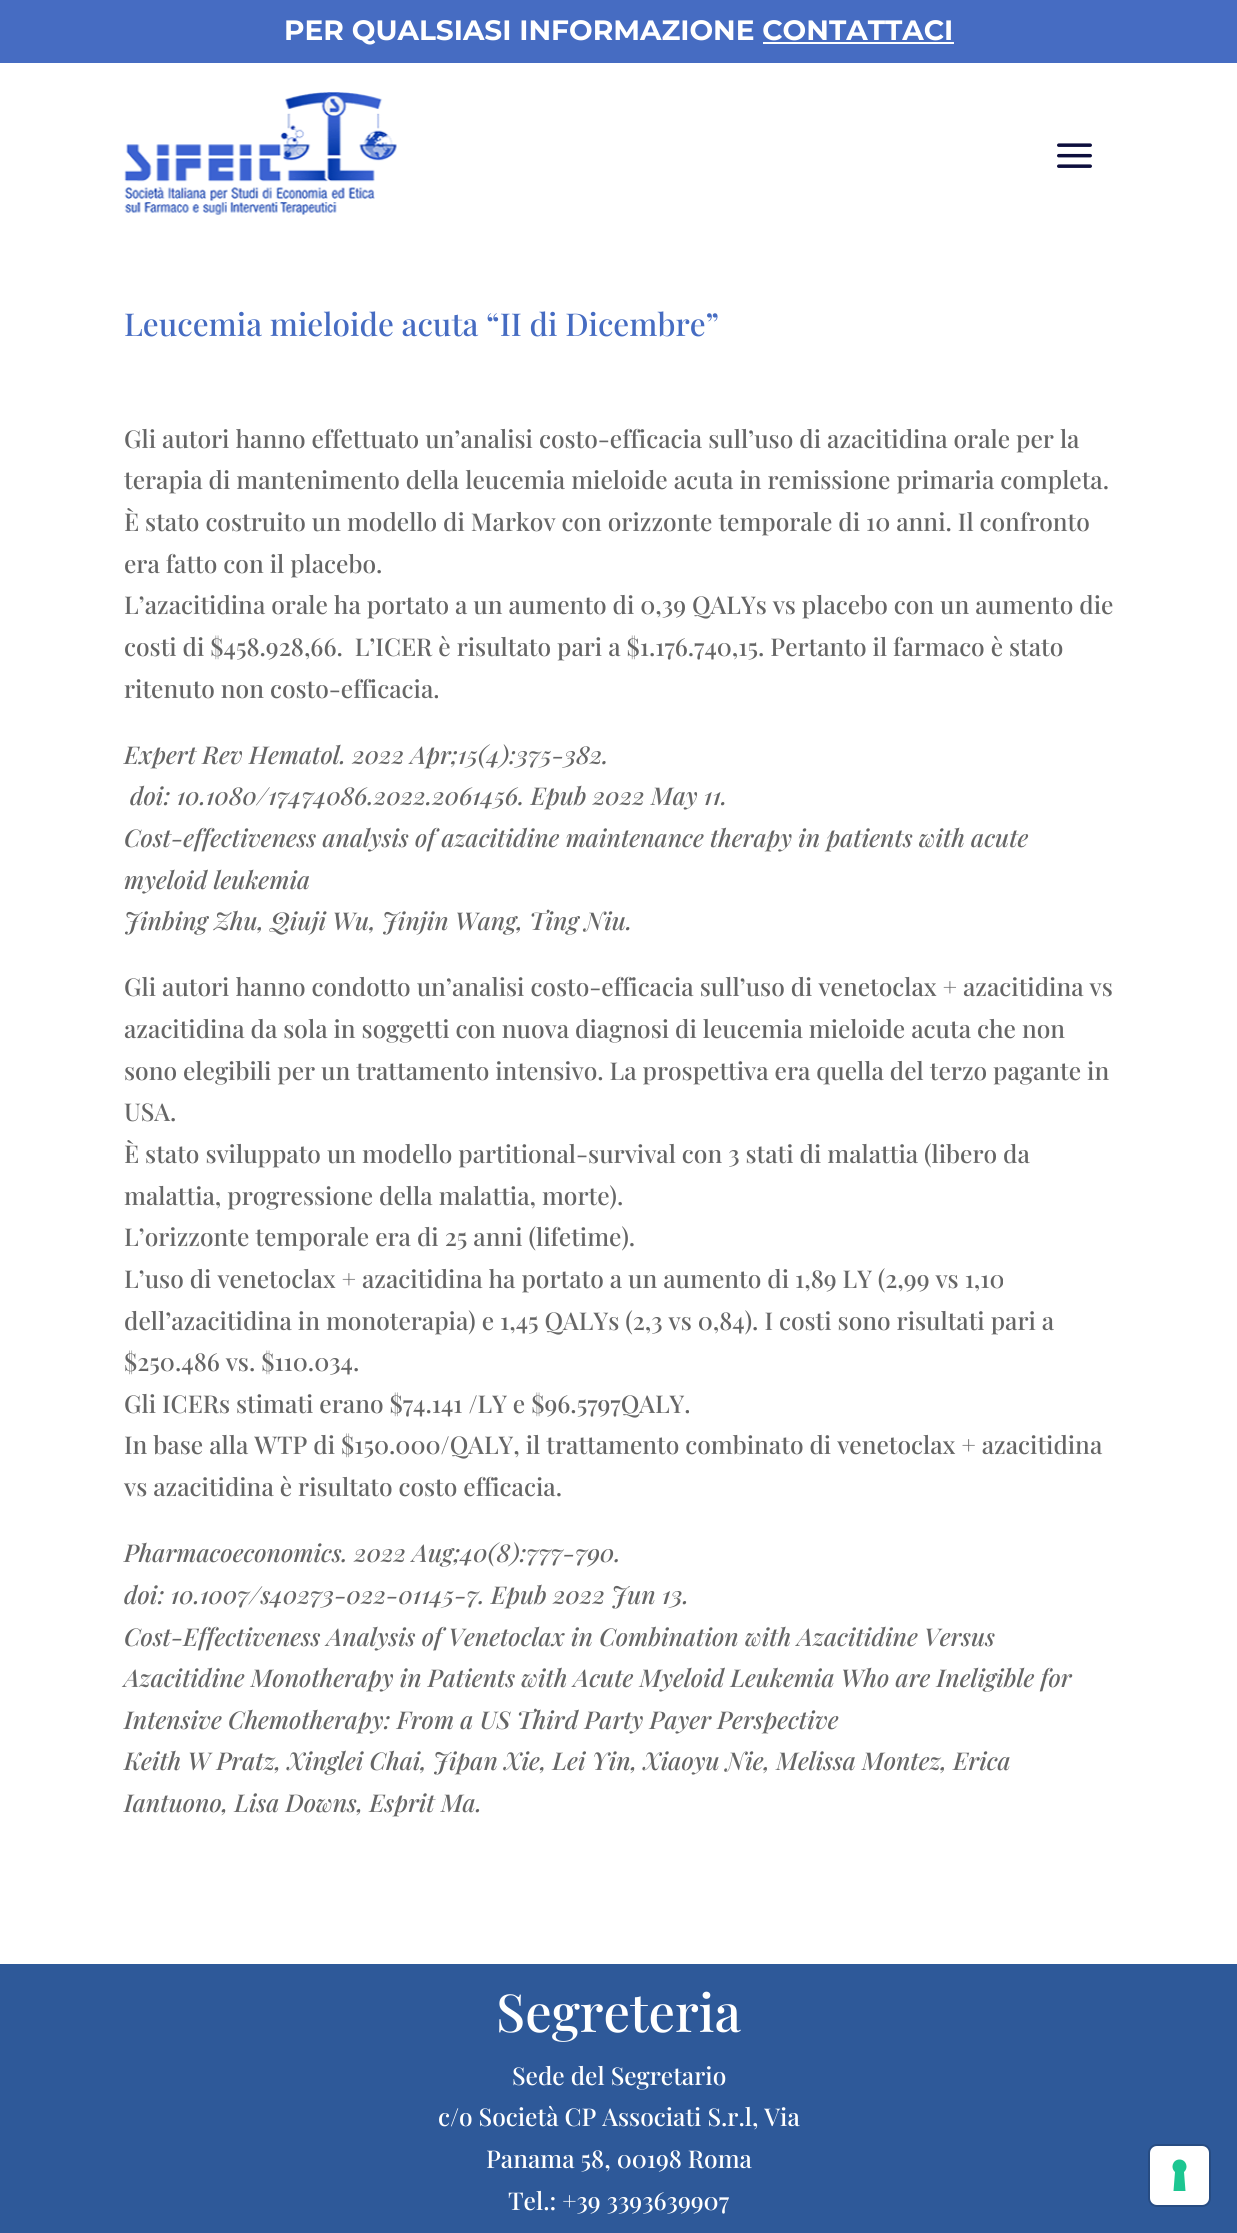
#include <cairo.h>
#include <math.h>
#include <stddef.h>

static cairo_t *c;
static void C(unsigned color){cairo_set_source_rgb(c, (color >> 16) / 255.0, (color >> 8 & 255) / 255.0, (color & 255) / 255.0);}
static void F(const char *family, double size, int italic, int bold){cairo_select_font_face(c, family, italic ? CAIRO_FONT_SLANT_ITALIC : CAIRO_FONT_SLANT_NORMAL,bold ? CAIRO_FONT_WEIGHT_BOLD : CAIRO_FONT_WEIGHT_NORMAL);cairo_set_font_size(c, size);}
static void T(double x, double y, const char *s){cairo_move_to(c, x, y);cairo_show_text(c, s);}
static void R(double x, double y, double w, double h){cairo_rectangle(c, x, y, w, h);cairo_fill(c);}
static void Q(double x, double y, double w, double h, double r){cairo_new_sub_path(c);cairo_arc(c, x + w - r, y + h - r, r, 0, M_PI / 2);cairo_arc(c, x + r, y + h - r, r, M_PI / 2, M_PI);cairo_arc(c, x + r, y + r, r, M_PI, 1.5 * M_PI);cairo_arc(c, x + w - r, y + r, r, 1.5 * M_PI, 2 * M_PI);cairo_close_path(c);}
static void I(const char *path, double x, double y, double w, double h){cairo_surface_t *image = cairo_image_surface_create_from_png(path);cairo_save(c);cairo_set_source_surface(c, image, x, y);cairo_rectangle(c, x, y, w, h);cairo_fill(c);cairo_restore(c);cairo_surface_destroy(image);}
int main(void) {
cairo_surface_t *surface = cairo_image_surface_create(CAIRO_FORMAT_RGB24, 1237, 2233);
c = cairo_create(surface);
cairo_font_options_t *options = cairo_font_options_create();
cairo_font_options_set_hint_metrics(options, CAIRO_HINT_METRICS_OFF);
cairo_font_options_set_hint_style(options, CAIRO_HINT_STYLE_NONE);
cairo_set_font_options(c, options);
cairo_set_miter_limit(c, 4);
C(0xffffff);
cairo_paint(c);
C(0x466cc2);
R(0,0,1237,63);
F("Montserrat",28,0,1);
C(0xffffff);
T(284,40,"PER QUALSIASI INFORMAZIONE CONTATTACI");
R(763,42,191,2);
I("1.png",124,92,273,123);
I("2.png",1057,143,35,25);
F("Playfair Display Medium",31.5,0,0);
C(0x466cc2);
T(124,336,"Leucemia mieloide acuta “II di Dicembre”");
F("Playfair Display Medium",24.5,0,0);
C(0x666666);
T(124,448,"Gli autori hanno effettuato un’analisi costo-efficacia sull’uso di azacitidina orale per la");
T(124,489,"terapia di mantenimento della leucemia mieloide acuta in remissione primaria completa.");
T(124,531,"È stato costruito un modello di Markov con orizzonte temporale di 10 anni. Il confronto");
T(124,573,"era fatto con il placebo.");
T(124,614,"L’azacitidina orale ha portato a un aumento di 0,39 QALYs vs placebo con un aumento die");
T(124,656,"costi di $458.928,66.  L’ICER è risultato pari a $1.176.740,15. Pertanto il farmaco è stato");
T(124,698,"ritenuto non costo-efficacia.");
F("Playfair Display Medium",24.5,1,0);
T(124,764,"Expert Rev Hematol. 2022 Apr;15(4):375-382.");
T(130,805,"doi: 10.1080/17474086.2022.2061456. Epub 2022 May 11.");
T(124,847,"Cost-effectiveness analysis of azacitidine maintenance therapy in patients with acute");
T(124,889,"myeloid leukemia");
T(124,930,"Jinbing Zhu, Qiuji Wu, Jinjin Wang, Ting Niu.");
F("Playfair Display Medium",24.5,0,0);
T(124,996,"Gli autori hanno condotto un’analisi costo-efficacia sull’uso di venetoclax + azacitidina vs");
T(124,1038,"azacitidina da sola in soggetti con nuova diagnosi di leucemia mieloide acuta che non");
T(124,1080,"sono elegibili per un trattamento intensivo. La prospettiva era quella del terzo pagante in");
T(124,1121,"USA.");
T(124,1163,"È stato sviluppato un modello partitional-survival con 3 stati di malattia (libero da");
T(124,1205,"malattia, progressione della malattia, morte).");
T(124,1246,"L’orizzonte temporale era di 25 anni (lifetime).");
T(124,1288,"L’uso di venetoclax + azacitidina ha portato a un aumento di 1,89 LY (2,99 vs 1,10");
T(124,1330,"dell’azacitidina in monoterapia) e 1,45 QALYs (2,3 vs 0,84). I costi sono risultati pari a");
T(124,1371,"$250.486 vs. $110.034.");
T(124,1413,"Gli ICERs stimati erano $74.141 /LY e $96.5797QALY.");
T(124,1454,"In base alla WTP di $150.000/QALY, il trattamento combinato di venetoclax + azacitidina");
T(124,1496,"vs azacitidina è risultato costo efficacia.");
F("Playfair Display Medium",24.5,1,0);
T(124,1562,"Pharmacoeconomics. 2022 Aug;40(8):777-790.");
T(124,1604,"doi: 10.1007/s40273-022-01145-7. Epub 2022 Jun 13.");
T(124,1646,"Cost-Effectiveness Analysis of Venetoclax in Combination with Azacitidine Versus");
T(124,1687,"Azacitidine Monotherapy in Patients with Acute Myeloid Leukemia Who are Ineligible for");
T(124,1729,"Intensive Chemotherapy: From a US Third Party Payer Perspective");
T(124,1770,"Keith W Pratz, Xinglei Chai, Jipan Xie, Lei Yin, Xiaoyu Nie, Melissa Montez, Erica");
T(124,1812,"Iantuono, Lisa Downs, Esprit Ma.");
C(0x2e5999);
R(0,1964,1237,269);
F("Playfair Display Medium",52.5,0,0);
C(0xffffff);
T(496,2032,"Segreteria");
F("Playfair Display Medium",24.5,0,0);
T(512,2085,"Sede del Segretario");
T(438,2126,"c/o Società CP Associati S.r.l, Via");
T(486,2168,"Panama 58, 00198 Roma");
T(508,2210,"Tel.: +39 3393639907");
Q(1149,2145,61,61,8);
C(0x274c82);
cairo_stroke(c);
C(0xffffff);
Q(1150,2146,59,59,7);
cairo_fill(c);
C(0x1cc691);
cairo_set_fill_rule(c,CAIRO_FILL_RULE_EVEN_ODD);
cairo_new_path(c);
cairo_move_to(c,1179.5,2159.5);
cairo_curve_to(c,1186,2159.5,1189,2167.5,1184,2172);
cairo_line_to(c,1185.5,2191);
cairo_line_to(c,1173.5,2191);
cairo_line_to(c,1175,2172);
cairo_curve_to(c,1170,2167.5,1173,2159.5,1179.5,2159.5);
cairo_close_path(c);
cairo_fill(c);
cairo_surface_write_to_png(surface, "o.png");
cairo_font_options_destroy(options);
cairo_destroy(c);
cairo_surface_destroy(surface);
return 0;
}
